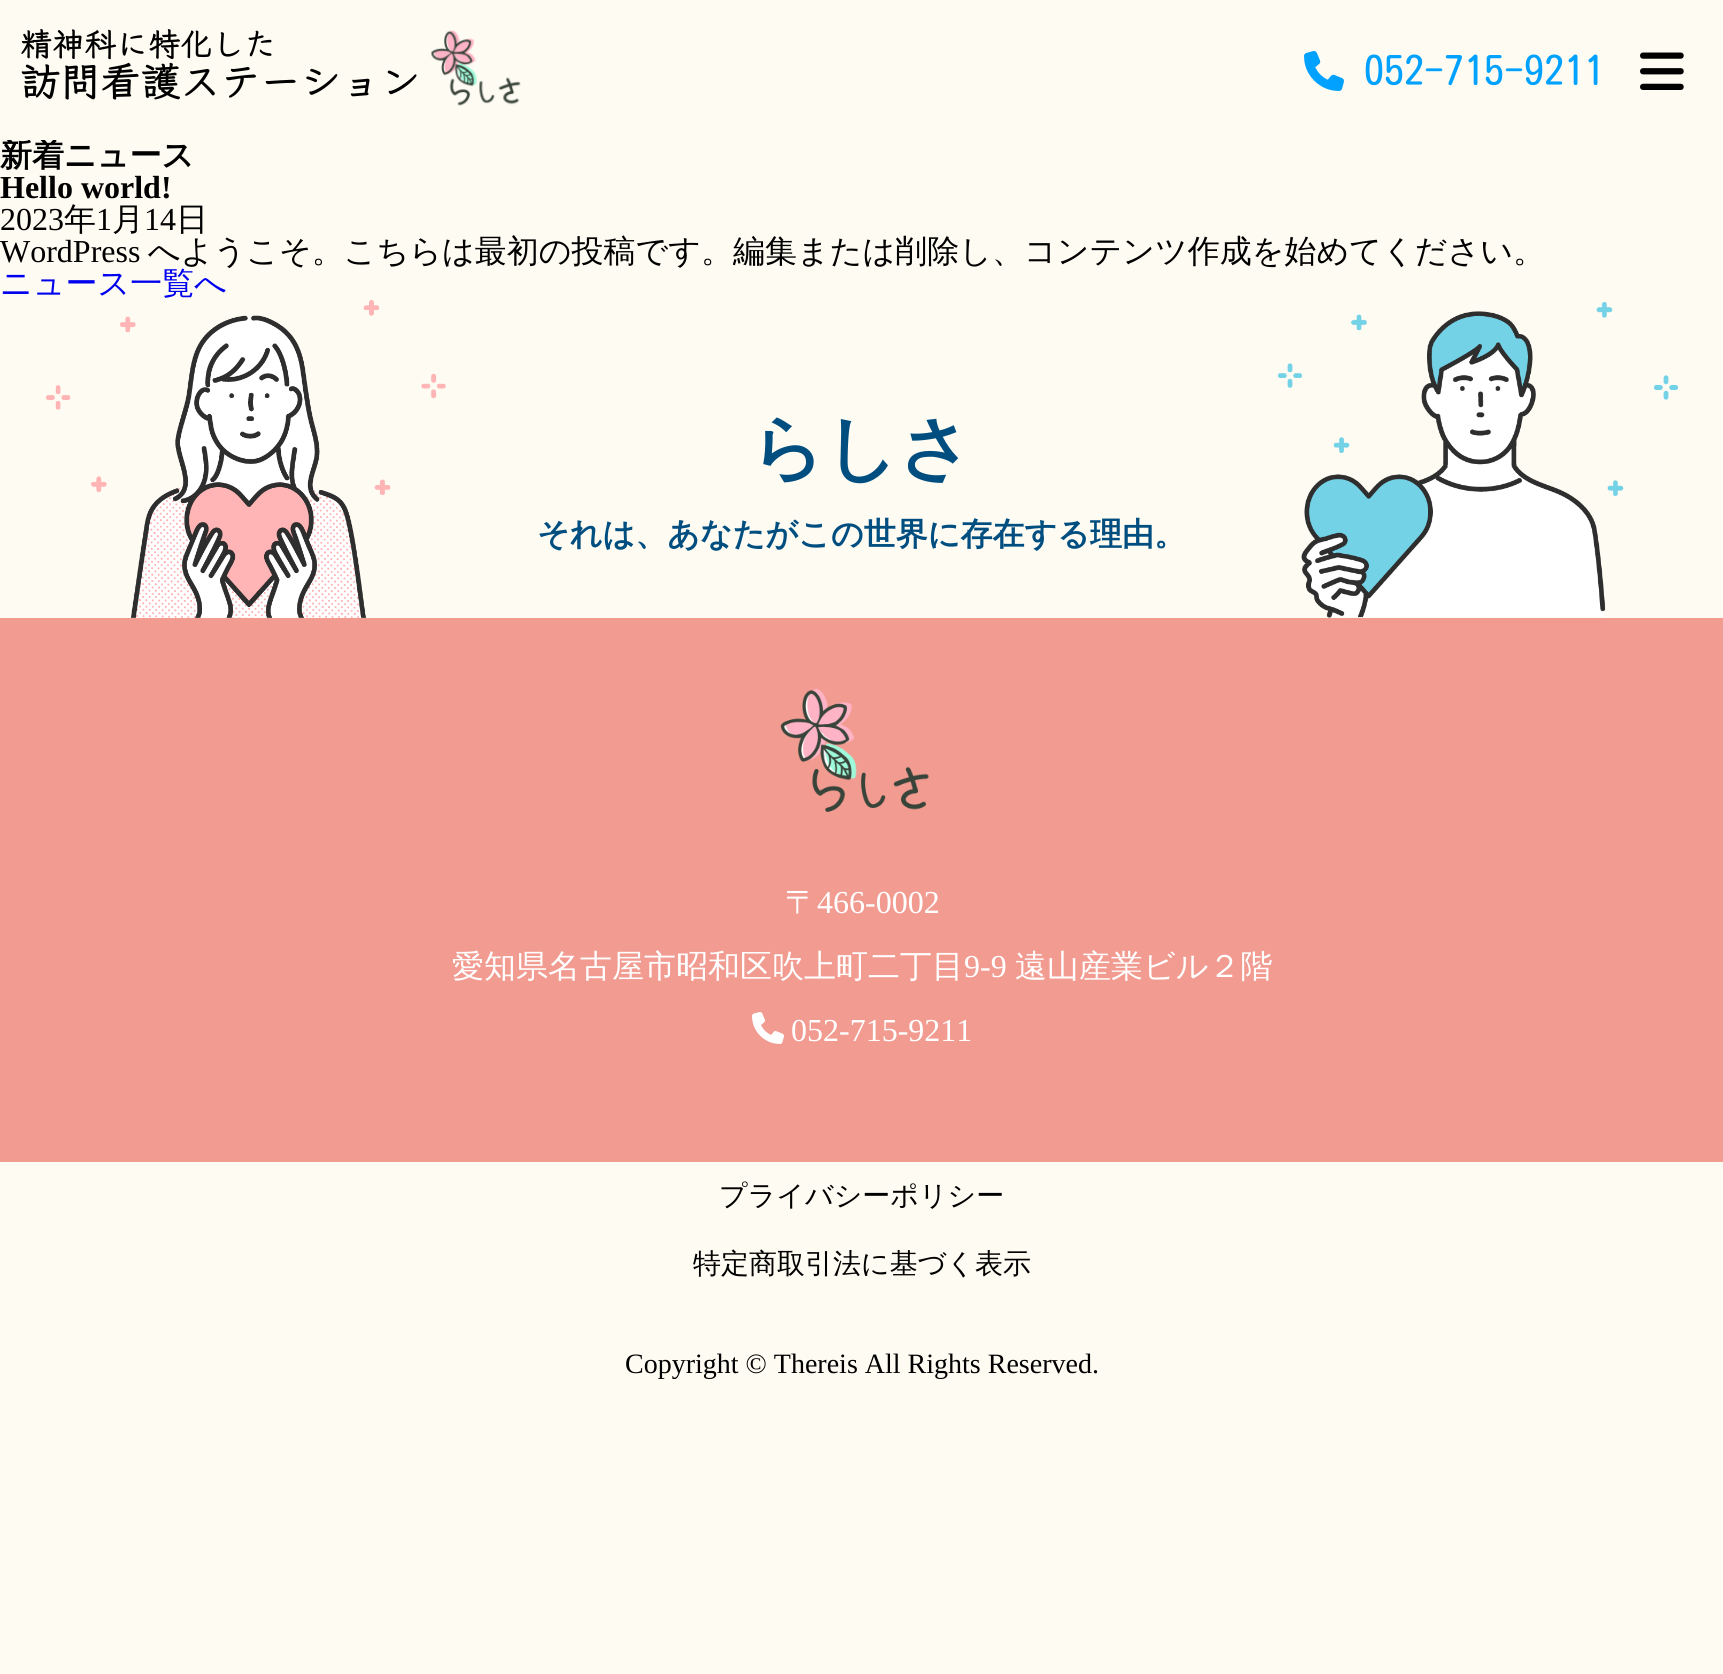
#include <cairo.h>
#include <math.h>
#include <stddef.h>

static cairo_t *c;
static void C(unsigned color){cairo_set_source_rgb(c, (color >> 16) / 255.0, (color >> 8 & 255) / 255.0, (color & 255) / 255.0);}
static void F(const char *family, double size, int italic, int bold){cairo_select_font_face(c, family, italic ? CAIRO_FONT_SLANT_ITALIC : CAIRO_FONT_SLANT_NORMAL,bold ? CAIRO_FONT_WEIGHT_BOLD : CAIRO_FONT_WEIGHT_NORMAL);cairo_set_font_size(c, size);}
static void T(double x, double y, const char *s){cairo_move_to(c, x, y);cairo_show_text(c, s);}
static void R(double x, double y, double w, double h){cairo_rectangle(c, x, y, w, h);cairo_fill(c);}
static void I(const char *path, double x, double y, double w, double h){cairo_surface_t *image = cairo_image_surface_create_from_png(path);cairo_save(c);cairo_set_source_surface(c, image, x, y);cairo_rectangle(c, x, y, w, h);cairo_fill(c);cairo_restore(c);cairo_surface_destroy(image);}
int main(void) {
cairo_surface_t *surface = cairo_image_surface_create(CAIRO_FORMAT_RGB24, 1723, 1674);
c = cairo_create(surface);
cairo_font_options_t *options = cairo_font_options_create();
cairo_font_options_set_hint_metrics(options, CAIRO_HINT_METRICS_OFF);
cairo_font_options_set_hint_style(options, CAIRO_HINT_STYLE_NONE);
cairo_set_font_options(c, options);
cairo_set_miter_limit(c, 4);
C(0xfdfbf2);
cairo_paint(c);
F("Klee One",32,0,1);
C(0x000000);
T(20,56,"精神科に特化した");
F("Klee One",40,0,1);
T(20,96,"訪問看護ステーション");
I("1.png",430,30,91,76);
I("2.png",1304,51,40,40);
F("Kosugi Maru",40,0,0);
C(0x00a1ff);
T(1364,85,"052-715-9211");
I("3.png",1640,52,44,38);
cairo_save(c);
cairo_rectangle(c,0,140,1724,160);
cairo_clip(c);
F("WenQuanYi Zen Hei",32,0,1);
C(0x000000);
T(0,166,"新着ニュース");
cairo_restore(c);
F("Liberation Serif",32,0,1);
C(0x000000);
T(0,198,"Hello world!");
F("Liberation Serif",32,0,0);
T(0,230,"2023");
F("WenQuanYi Zen Hei Medium",32,0,0);
T(64,230,"年");
F("Liberation Serif",32,0,0);
T(96,230,"1");
F("WenQuanYi Zen Hei Medium",32,0,0);
T(112,230,"月");
F("Liberation Serif",32,0,0);
T(144,230,"14");
F("WenQuanYi Zen Hei Medium",32,0,0);
T(176,230,"日");
F("Liberation Serif",32,0,0);
T(0,262,"WordPress");
F("WenQuanYi Zen Hei Medium",32,0,0);
T(148,262,"へようこそ。こちらは最初の投稿です。編集または削除し、コンテンツ作成を始めてください。");
C(0x0000ee);
T(0,294,"ニュース一覧へ");
I("4.png",46,300,400,318);
F("WenQuanYi Zen Hei",72,0,1);
C(0x004d80);
T(751,473,"らしさ");
F("WenQuanYi Zen Hei",32,0,1);
T(537,545,"それは、あなたがこの世界に存在する理由。");
I("5.png",1278,302,400,316);
C(0xf19b91);
R(0,618,1723,544);
I("6.png",780,688,149,124);
F("WenQuanYi Zen Hei Medium",32,0,0);
C(0xffffff);
T(785,913,"〒");
F("Liberation Serif",32,0,0);
T(817,913,"466-0002");
F("WenQuanYi Zen Hei Medium",32,0,0);
T(452,977,"愛知県名古屋市昭和区吹上町二丁目");
F("Liberation Serif",32,0,0);
T(964,977,"9-9");
F("WenQuanYi Zen Hei Medium",32,0,0);
T(1015,977,"遠山産業ビル２階");
I("7.png",752,1012,32,32);
F("Liberation Serif",32,0,0);
T(791,1041,"052-715-9211");
F("WenQuanYi Zen Hei Medium",28,0,0);
C(0x000000);
T(719,1205,"プライバシーポリシー");
T(693,1273,"特定商取引法に基づく表示");
F("Liberation Serif",28,0,0);
T(625,1373,"Copyright © Thereis All Rights Reserved.");
cairo_surface_write_to_png(surface, "o.png");
cairo_font_options_destroy(options);
cairo_destroy(c);
cairo_surface_destroy(surface);
return 0;
}
